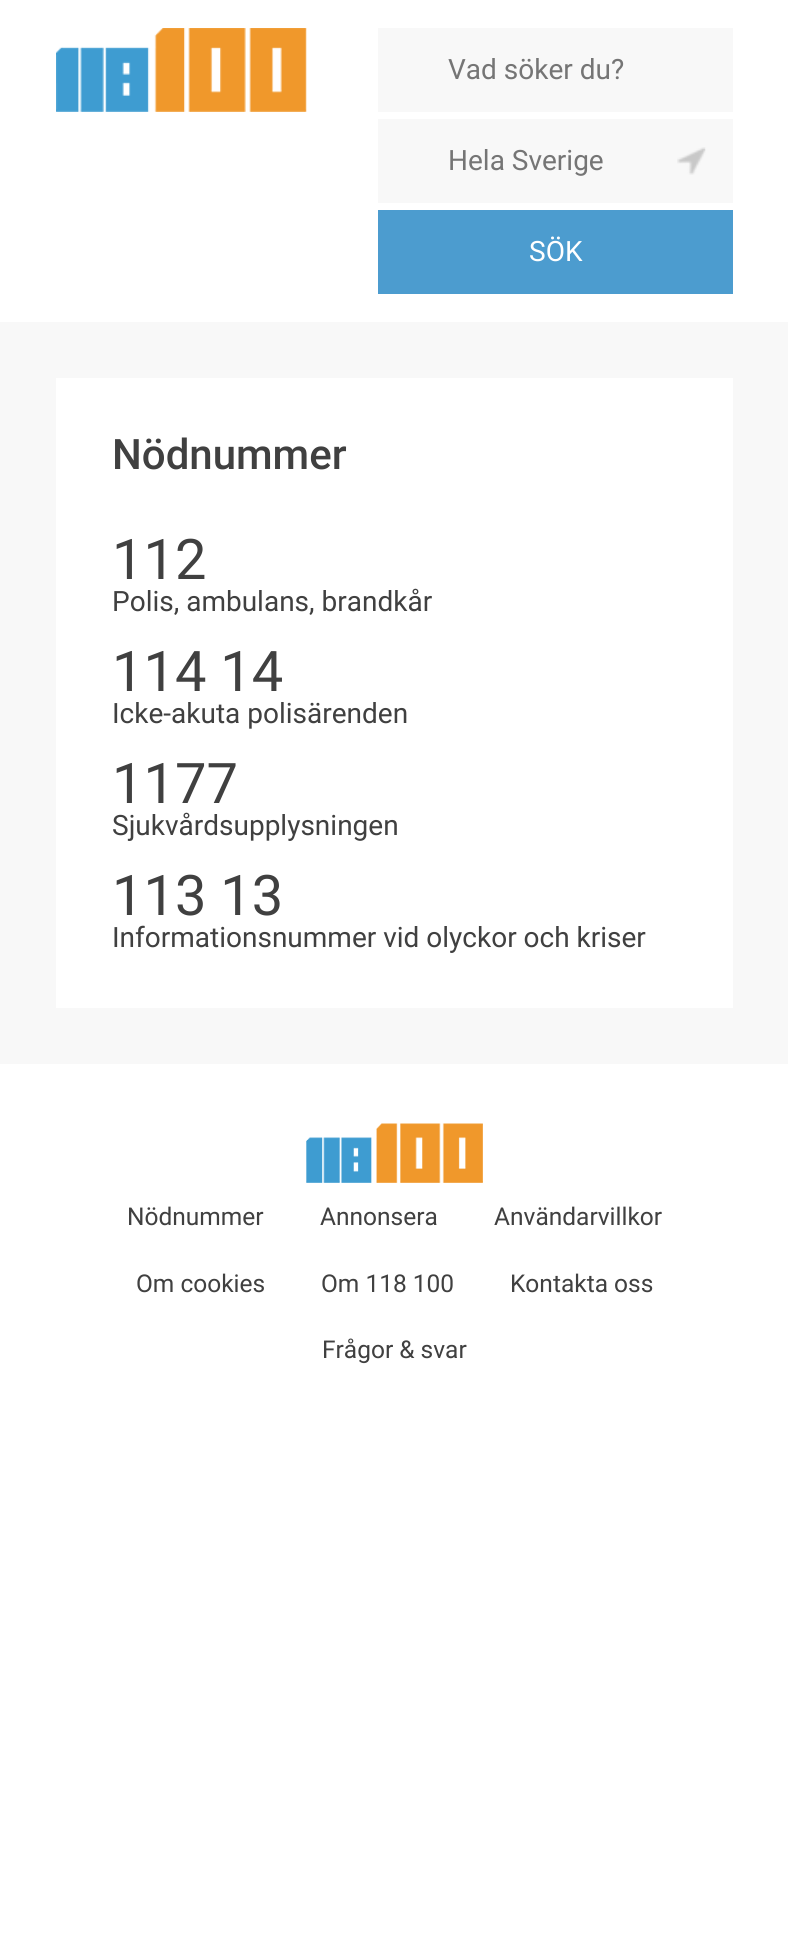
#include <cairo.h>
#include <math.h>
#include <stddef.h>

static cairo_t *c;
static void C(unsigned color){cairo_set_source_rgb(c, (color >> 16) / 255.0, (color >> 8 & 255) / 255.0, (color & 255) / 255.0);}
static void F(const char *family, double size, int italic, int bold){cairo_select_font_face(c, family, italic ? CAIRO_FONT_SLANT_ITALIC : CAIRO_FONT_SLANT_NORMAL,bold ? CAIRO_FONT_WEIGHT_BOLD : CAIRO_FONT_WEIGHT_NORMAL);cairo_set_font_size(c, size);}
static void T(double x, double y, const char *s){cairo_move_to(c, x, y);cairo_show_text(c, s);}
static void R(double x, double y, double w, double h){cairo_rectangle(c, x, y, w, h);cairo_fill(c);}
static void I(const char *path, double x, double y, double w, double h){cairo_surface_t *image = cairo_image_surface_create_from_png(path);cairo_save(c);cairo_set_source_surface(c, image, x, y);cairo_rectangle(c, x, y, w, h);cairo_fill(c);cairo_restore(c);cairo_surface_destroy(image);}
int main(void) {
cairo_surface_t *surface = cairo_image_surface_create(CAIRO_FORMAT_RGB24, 788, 1957);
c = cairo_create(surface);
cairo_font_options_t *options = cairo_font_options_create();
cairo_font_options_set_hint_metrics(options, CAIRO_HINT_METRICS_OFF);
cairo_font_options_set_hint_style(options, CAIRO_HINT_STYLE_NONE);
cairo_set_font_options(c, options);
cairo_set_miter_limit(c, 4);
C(0xffffff);
cairo_paint(c);
I("1.png",56,28,251,84);
C(0xf8f8f8);
R(378,28,355,84);
F("Roboto",28,0,0);
C(0x757575);
T(448,79,"Vad söker du?");
C(0xf8f8f8);
R(378,119,355,84);
C(0x757575);
T(448,170,"Hela Sverige");
I("2.png",677,147,29,28);
C(0x4c9ccf);
R(378,210,355,84);
C(0xffffff);
T(529,261,"SÖK");
C(0xf8f8f8);
R(0,322,788,742);
C(0xffffff);
R(56,378,677,630);
F("Roboto Medium",42,0,0);
C(0x404040);
T(112,469,"Nödnummer");
F("Roboto",56,0,0);
T(112,579,"112");
F("Roboto",28,0,0);
T(112,611,"Polis, ambulans, brandkår");
F("Roboto",56,0,0);
T(112,691,"114 14");
F("Roboto",28,0,0);
T(112,723,"Icke-akuta polisärenden");
F("Roboto",56,0,0);
T(112,803,"1177");
F("Roboto",28,0,0);
T(112,835,"Sjukvårdsupplysningen");
F("Roboto",56,0,0);
T(112,915,"113 13");
F("Roboto",28,0,0);
T(112,947,"Informationsnummer vid olyckor och kriser");
I("3.png",306,1123,177,60);
F("Roboto",24.5,0,0);
T(127,1225,"Nödnummer");
T(320,1225,"Annonsera");
T(494,1225,"Användarvillkor");
T(136,1292,"Om cookies");
T(321,1292,"Om 118 100");
T(510,1292,"Kontakta oss");
T(322,1358,"Frågor & svar");
cairo_surface_write_to_png(surface, "o.png");
cairo_font_options_destroy(options);
cairo_destroy(c);
cairo_surface_destroy(surface);
return 0;
}
